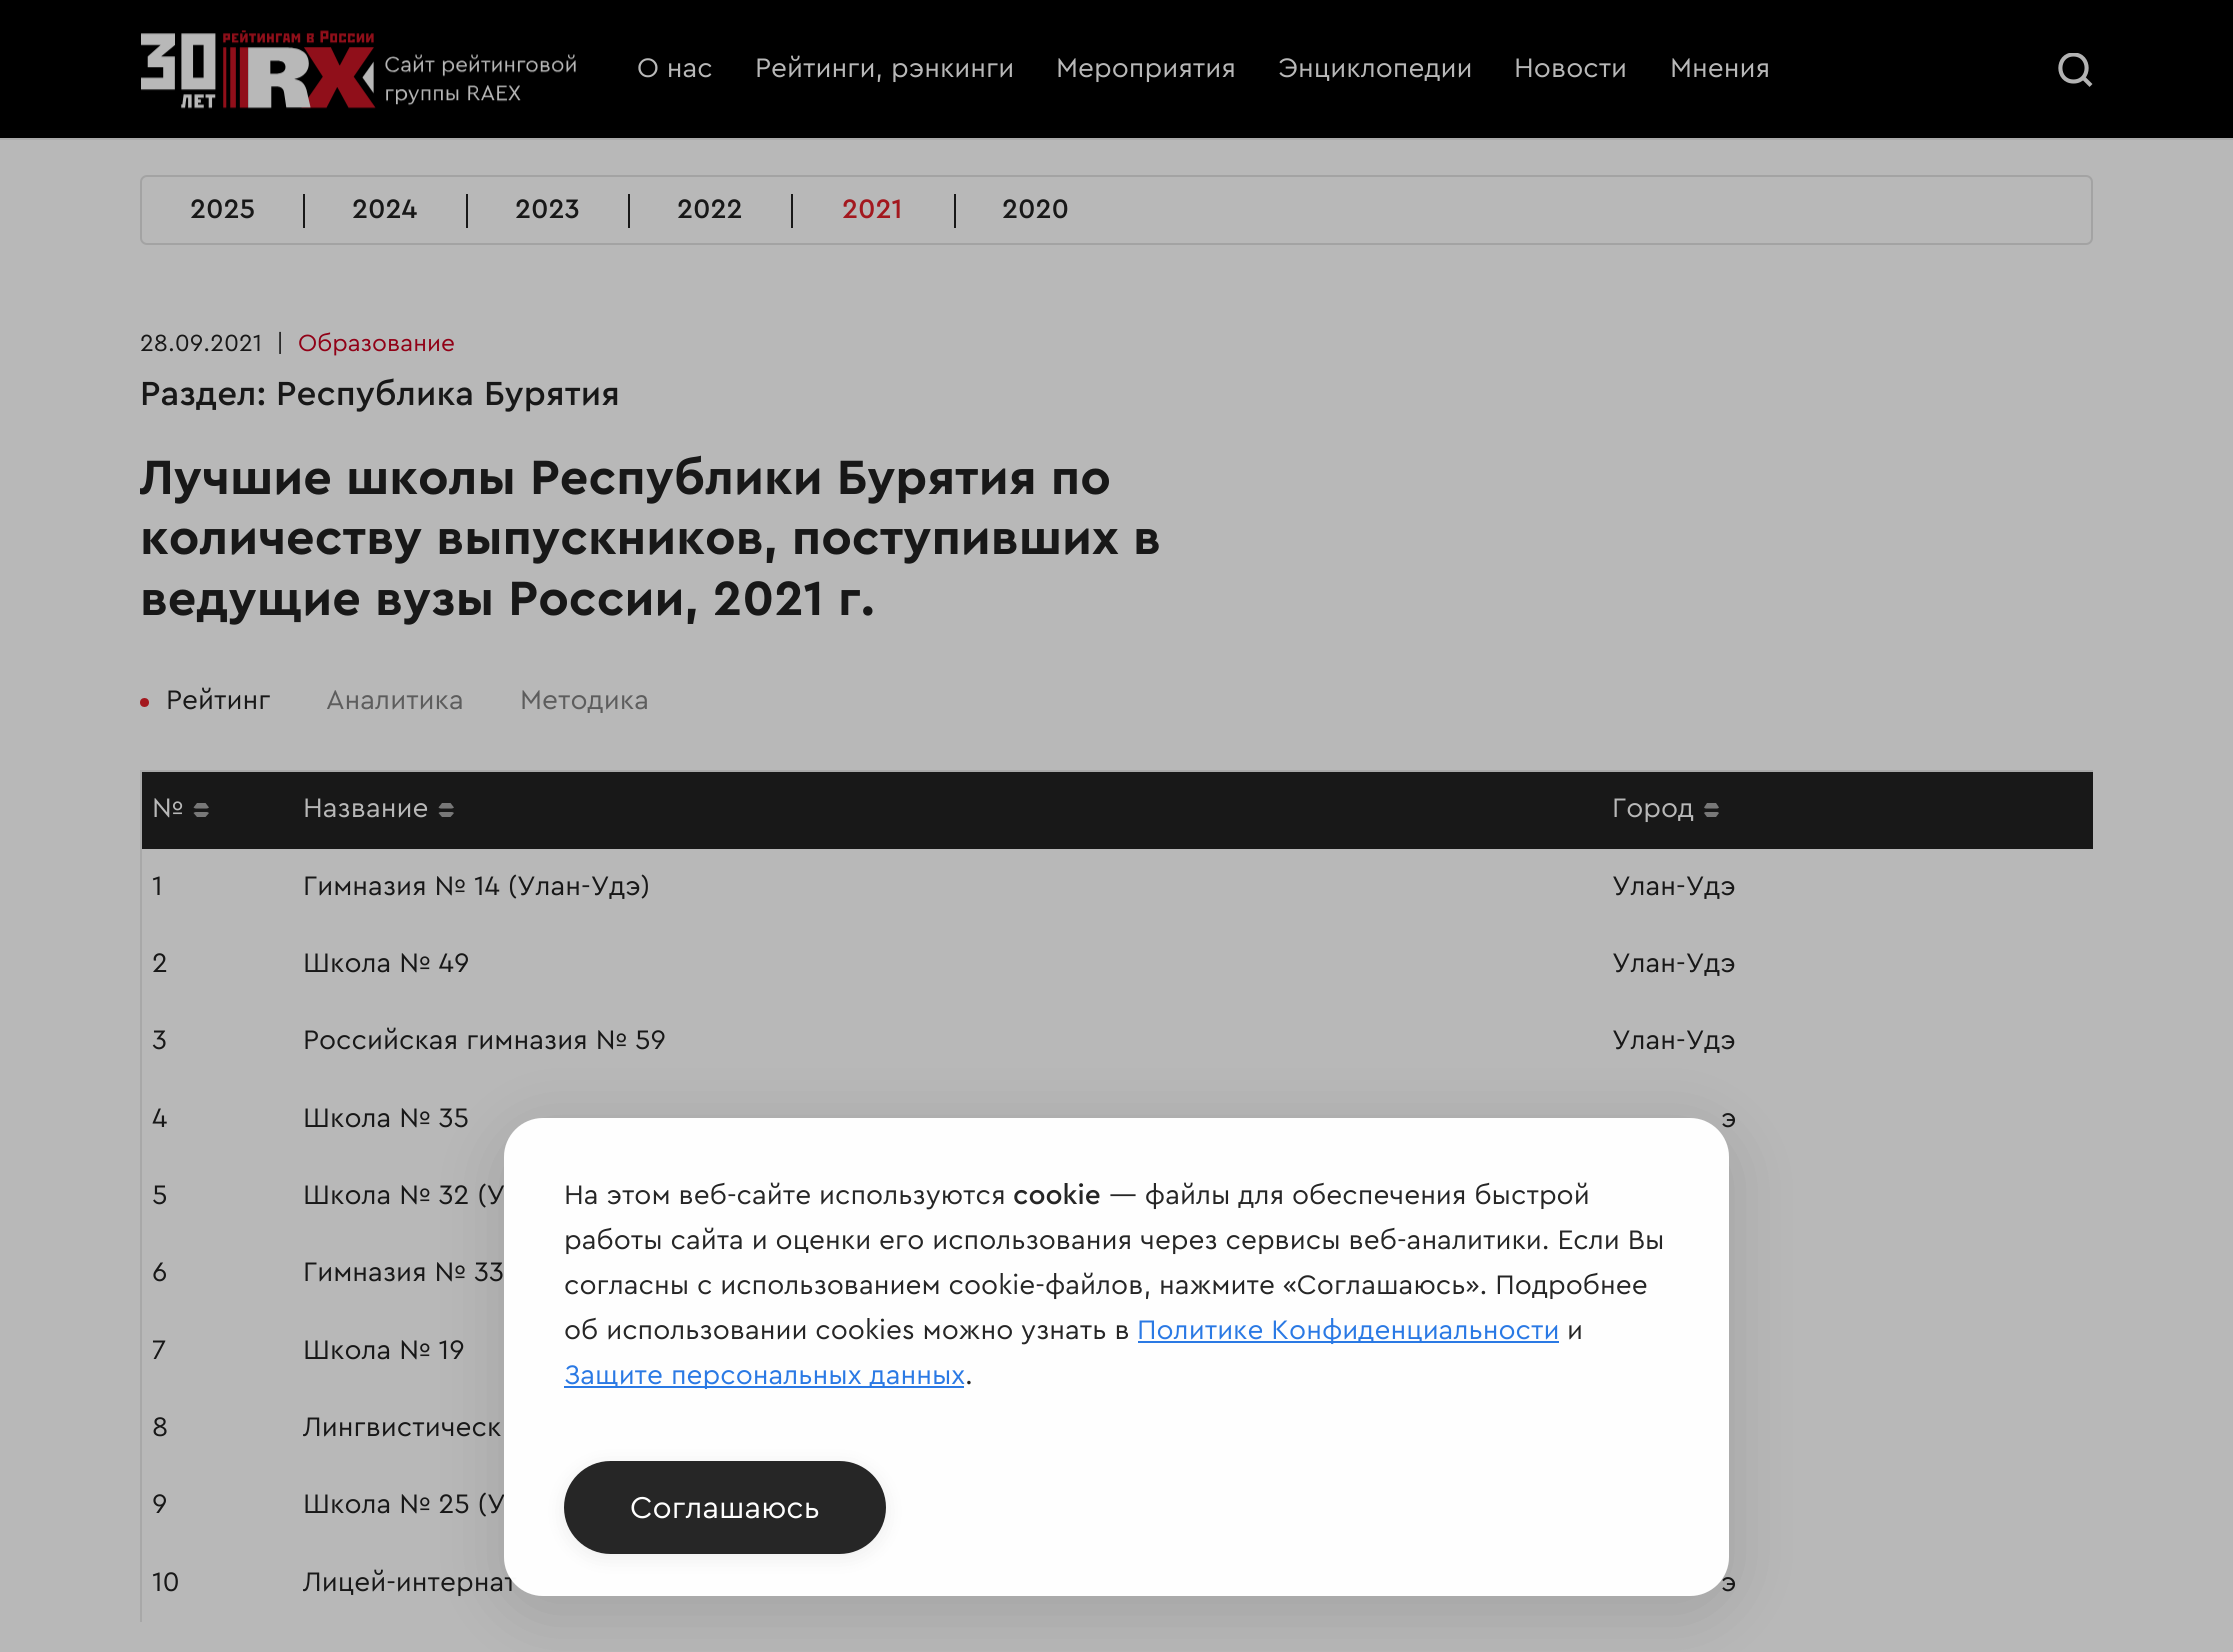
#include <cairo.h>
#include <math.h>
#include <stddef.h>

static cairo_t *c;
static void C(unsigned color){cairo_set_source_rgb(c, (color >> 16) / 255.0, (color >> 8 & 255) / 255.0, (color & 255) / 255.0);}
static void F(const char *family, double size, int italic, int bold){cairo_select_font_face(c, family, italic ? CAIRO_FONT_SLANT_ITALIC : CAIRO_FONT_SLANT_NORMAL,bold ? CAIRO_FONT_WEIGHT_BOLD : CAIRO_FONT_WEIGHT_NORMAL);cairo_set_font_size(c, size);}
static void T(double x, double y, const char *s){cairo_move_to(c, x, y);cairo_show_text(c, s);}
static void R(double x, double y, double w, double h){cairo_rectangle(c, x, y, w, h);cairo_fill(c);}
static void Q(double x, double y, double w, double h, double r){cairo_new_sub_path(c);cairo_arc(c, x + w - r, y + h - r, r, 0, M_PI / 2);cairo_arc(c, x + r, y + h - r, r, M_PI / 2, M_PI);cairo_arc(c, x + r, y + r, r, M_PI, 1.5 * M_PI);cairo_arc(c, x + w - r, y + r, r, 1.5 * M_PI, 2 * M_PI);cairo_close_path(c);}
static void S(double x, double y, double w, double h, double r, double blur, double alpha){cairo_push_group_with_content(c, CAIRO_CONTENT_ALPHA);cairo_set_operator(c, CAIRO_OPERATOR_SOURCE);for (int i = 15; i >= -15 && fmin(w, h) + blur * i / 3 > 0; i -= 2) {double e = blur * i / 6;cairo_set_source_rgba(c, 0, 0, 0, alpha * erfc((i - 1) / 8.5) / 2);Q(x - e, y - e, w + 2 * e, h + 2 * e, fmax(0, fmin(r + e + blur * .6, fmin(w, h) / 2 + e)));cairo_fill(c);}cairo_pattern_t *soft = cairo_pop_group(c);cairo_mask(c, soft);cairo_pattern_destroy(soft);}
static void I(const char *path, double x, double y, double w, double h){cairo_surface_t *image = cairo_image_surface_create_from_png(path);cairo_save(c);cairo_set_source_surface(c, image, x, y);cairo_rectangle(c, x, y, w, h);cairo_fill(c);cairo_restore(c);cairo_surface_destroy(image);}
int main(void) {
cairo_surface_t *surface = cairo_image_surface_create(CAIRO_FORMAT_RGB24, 2233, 1652);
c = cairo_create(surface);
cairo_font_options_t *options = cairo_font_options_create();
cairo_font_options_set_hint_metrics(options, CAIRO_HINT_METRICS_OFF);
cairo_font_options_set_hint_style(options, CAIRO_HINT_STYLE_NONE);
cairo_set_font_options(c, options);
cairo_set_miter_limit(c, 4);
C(0xb8b8b8);
cairo_paint(c);
C(0x000000);
R(0,0,2233,138);
C(0xaaaaaa);
R(0,138,2233,2);
I("1.png",141,30,435,79);
F("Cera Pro",28,0,0);
C(0xb8b8b8);
T(637,77,"О нас");
T(755,77,"Рейтинги, рэнкинги");
T(1056,77,"Мероприятия");
T(1278,77,"Энциклопедии");
T(1514,77,"Новости");
T(1670,77,"Мнения");
cairo_save(c);
cairo_rectangle(c,2058,53,35,35);
cairo_clip(c);
cairo_new_path(c);
cairo_move_to(c,2073.5,81.5);
cairo_curve_to(c,2091,81.5,2091,54.5,2073.5,54.5);
cairo_curve_to(c,2056,54.5,2056,81.5,2073.5,81.5);
cairo_close_path(c);
C(0xb3b3b3);
cairo_set_line_width(c,4.1);
cairo_stroke(c);
cairo_restore(c);
cairo_new_path(c);
cairo_move_to(c,2082.5,77);
cairo_line_to(c,2091,85.5);
C(0xb3b3b3);
cairo_set_line_width(c,4.1);
cairo_stroke(c);
Q(141,176,1951,68,6);
C(0xa3a3a3);
cairo_set_line_width(c,2);
cairo_stroke(c);
C(0x181818);
R(303,194,2,34);
F("Cera Pro Medium",28,0,0);
T(190,218,"2025");
R(466,194,2,34);
T(352,218,"2024");
R(628,194,2,34);
T(515,218,"2023");
R(791,194,2,34);
T(677,218,"2022");
R(954,194,2,34);
C(0xa3181e);
T(842,218,"2021");
C(0x181818);
T(1002,218,"2020");
F("Cera Pro",24.5,0,0);
T(140,351,"28.09.2021");
T(276,351,"|");
C(0x910016);
T(298,351,"Образование");
F("Cera Pro Medium",35,0,0);
C(0x181818);
T(140,405,"Раздел: Республика Бурятия");
F("Cera Pro",50.4,0,1);
T(140,494,"Лучшие школы Республики Бурятия по");
T(140,554,"количеству выпускников, поступивших в");
T(140,615,"ведущие вузы России, 2021 г.");
C(0xa3181e);
cairo_new_path(c);
cairo_arc(c,144.5,702.5,4.5,0,2 * M_PI);
cairo_fill(c);
F("Cera Pro",28,0,0);
C(0x181818);
T(166,709,"Рейтинг");
C(0x5d5d5d);
T(326,709,"Аналитика");
T(520,709,"Методика");
C(0xa8a8a8);
R(140,770,1953,2);
R(140,770,2,852);
C(0x181818);
R(142,772,1951,77);
C(0xb8b8b8);
T(152,817,"№");
C(0x787878);
cairo_new_path(c);
cairo_move_to(c,196,808.5);
cairo_line_to(c,206.5,808.5);
cairo_curve_to(c,207.5,808.5,208.5,808,209,807.5);
cairo_line_to(c,205.5,803);
cairo_line_to(c,197,803);
cairo_line_to(c,193.5,807.5);
cairo_curve_to(c,194,808,195,808.5,196,808.5);
cairo_close_path(c);
cairo_move_to(c,196,812);
cairo_curve_to(c,195,812,194,812.5,193.5,813);
cairo_line_to(c,197,817);
cairo_line_to(c,205.5,817);
cairo_line_to(c,209,813);
cairo_curve_to(c,208.5,812.5,207.5,812,206.5,812);
cairo_close_path(c);
cairo_fill(c);
C(0xb8b8b8);
T(303,817,"Название");
C(0x787878);
cairo_new_path(c);
cairo_move_to(c,441,808.5);
cairo_line_to(c,451.5,808.5);
cairo_curve_to(c,452.5,808.5,453.5,808,454,807.5);
cairo_line_to(c,450.5,803);
cairo_line_to(c,442,803);
cairo_line_to(c,438.5,807.5);
cairo_curve_to(c,439,808,440,808.5,441,808.5);
cairo_close_path(c);
cairo_move_to(c,441,812);
cairo_curve_to(c,440,812,439,812.5,438.5,813);
cairo_line_to(c,442,817);
cairo_line_to(c,450.5,817);
cairo_line_to(c,454,813);
cairo_curve_to(c,453.5,812.5,452.5,812,451.5,812);
cairo_close_path(c);
cairo_fill(c);
C(0xb8b8b8);
T(1612,817,"Город");
C(0x787878);
cairo_new_path(c);
cairo_move_to(c,1706,808.5);
cairo_line_to(c,1717,808.5);
cairo_curve_to(c,1718,808.5,1718.5,808,1719,807.5);
cairo_line_to(c,1716,803);
cairo_line_to(c,1707,803);
cairo_line_to(c,1704,807.5);
cairo_curve_to(c,1704.5,808,1705,808.5,1706,808.5);
cairo_close_path(c);
cairo_move_to(c,1706,812);
cairo_line_to(c,1717,812);
cairo_curve_to(c,1718,812,1718.5,812.5,1719,813);
cairo_line_to(c,1716,817);
cairo_line_to(c,1707,817);
cairo_line_to(c,1704,813);
cairo_curve_to(c,1704.5,812.5,1705,812,1706,812);
cairo_close_path(c);
cairo_fill(c);
C(0x181818);
T(152,895,"1");
T(303,895,"Гимназия № 14 (Улан-Удэ)");
T(1612,895,"Улан-Удэ");
T(152,972,"2");
T(303,972,"Школа № 49");
T(1612,972,"Улан-Удэ");
T(152,1049,"3");
T(303,1049,"Российская гимназия № 59");
T(1612,1049,"Улан-Удэ");
T(152,1127,"4");
T(303,1127,"Школа № 35");
T(1721,1127,"э");
T(152,1204,"5");
T(303,1204,"Школа № 32 (У");
T(152,1281,"6");
T(303,1281,"Гимназия № 33");
T(152,1359,"7");
T(303,1359,"Школа № 19");
T(152,1436,"8");
T(303,1436,"Лингвистическ");
T(152,1513,"9");
T(303,1513,"Школа № 25 (У");
T(152,1591,"10");
T(303,1591,"Лицей-интернат");
T(1721,1591,"э");
cairo_save(c);
cairo_set_fill_rule(c,CAIRO_FILL_RULE_EVEN_ODD);
cairo_new_path(c);
cairo_move_to(c,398,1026);
cairo_line_to(c,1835,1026);
cairo_line_to(c,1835,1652);
cairo_line_to(c,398,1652);
cairo_close_path(c);
cairo_move_to(c,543,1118);
cairo_line_to(c,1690,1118);
cairo_curve_to(c,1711.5,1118,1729,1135.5,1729,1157);
cairo_line_to(c,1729,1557);
cairo_curve_to(c,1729,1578.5,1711.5,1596,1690,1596);
cairo_line_to(c,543,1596);
cairo_curve_to(c,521.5,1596,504,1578.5,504,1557);
cairo_line_to(c,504,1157);
cairo_curve_to(c,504,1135.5,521.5,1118,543,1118);
cairo_close_path(c);
cairo_clip(c);
C(0x000000);
S(504,1132,1225,478,39,35,.13);
cairo_restore(c);
cairo_set_source_rgba(c,1,1,1,0.98);
Q(504,1118,1225,478,39);
cairo_fill(c);
C(0x262626);
T(564,1204,"На этом веб-сайте используются");
F("Cera Pro Medium",28,0,0);
T(1013,1204,"cookie");
F("Cera Pro",28,0,0);
T(1109,1204,"— файлы для обеспечения быстрой");
T(564,1249,"работы сайта и оценки его использования через сервисы веб-аналитики. Если Вы");
T(564,1294,"согласны с использованием cookie-файлов, нажмите «Соглашаюсь». Подробнее");
T(564,1339,"об использовании cookies можно узнать в");
C(0x2a79e4);
R(1138,1341,421,2);
T(1137,1339,"Политике Конфиденциальности");
C(0x262626);
T(1567,1339,"и");
C(0x2a79e4);
R(564,1386,400,2);
T(564,1384,"Защите персональных данных");
C(0x262626);
T(965,1384,".");
cairo_save(c);
cairo_set_fill_rule(c,CAIRO_FILL_RULE_EVEN_ODD);
cairo_new_path(c);
cairo_move_to(c,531,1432);
cairo_line_to(c,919,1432);
cairo_line_to(c,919,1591);
cairo_line_to(c,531,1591);
cairo_close_path(c);
cairo_move_to(c,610.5,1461);
cairo_line_to(c,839.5,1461);
cairo_curve_to(c,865,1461,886,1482,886,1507.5);
cairo_curve_to(c,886,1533,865,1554,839.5,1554);
cairo_line_to(c,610.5,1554);
cairo_curve_to(c,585,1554,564,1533,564,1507.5);
cairo_curve_to(c,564,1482,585,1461,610.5,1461);
cairo_close_path(c);
cairo_clip(c);
C(0x000000);
S(564,1465,322,93,46.5,10.5,.07);
cairo_restore(c);
cairo_set_source_rgba(c,0.133,0.133,0.133,0.98);
Q(564,1461,322,93,46.5);
cairo_fill(c);
F("Cera Pro",31.5,0,0);
C(0xfefefe);
T(630,1518,"Соглашаюсь");
cairo_surface_write_to_png(surface, "o.png");
cairo_font_options_destroy(options);
cairo_destroy(c);
cairo_surface_destroy(surface);
return 0;
}
